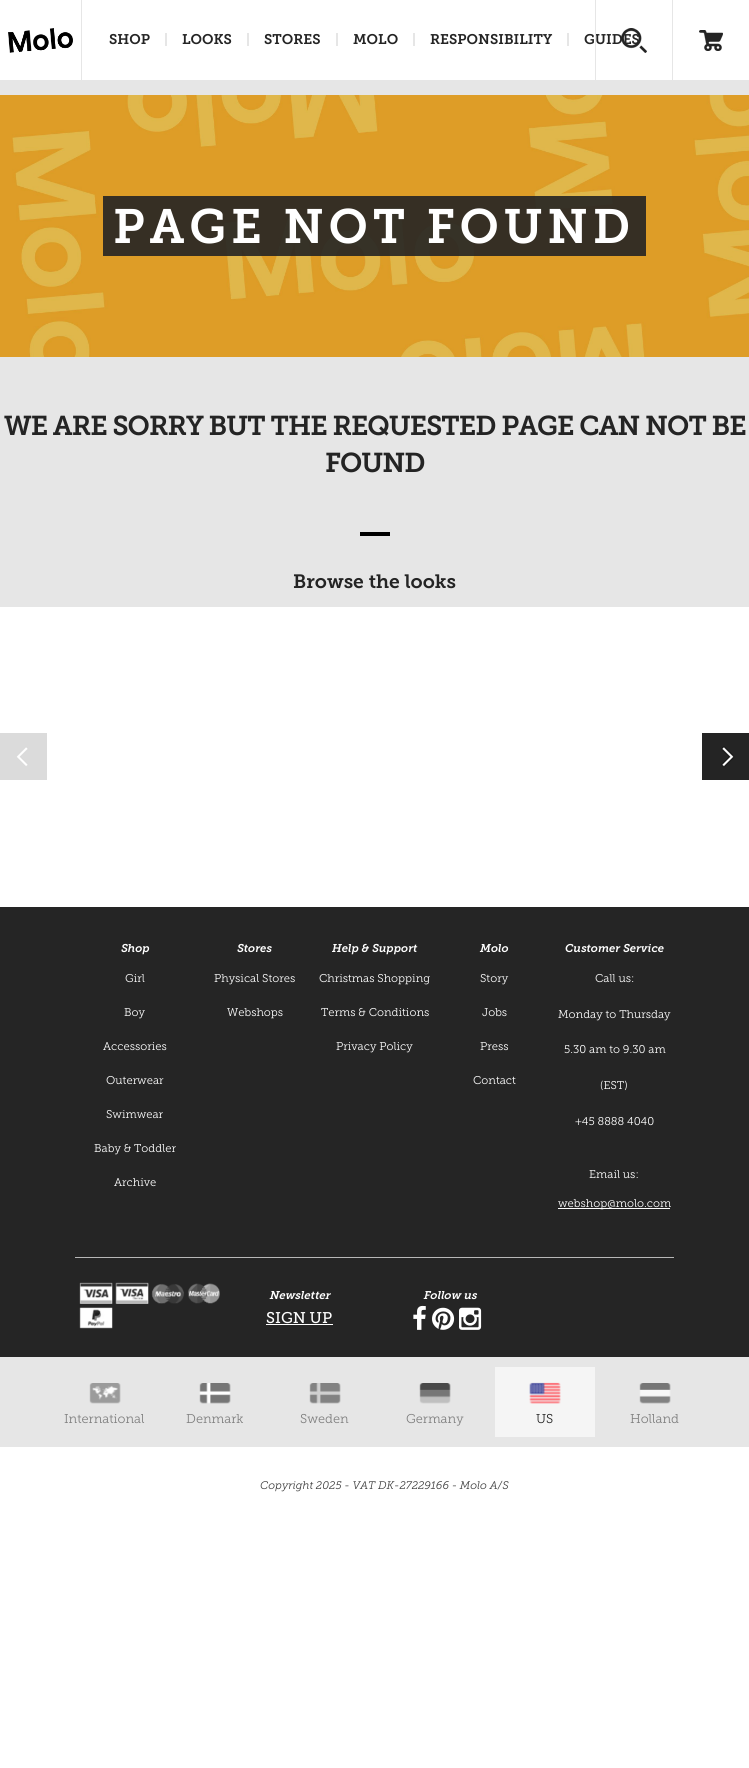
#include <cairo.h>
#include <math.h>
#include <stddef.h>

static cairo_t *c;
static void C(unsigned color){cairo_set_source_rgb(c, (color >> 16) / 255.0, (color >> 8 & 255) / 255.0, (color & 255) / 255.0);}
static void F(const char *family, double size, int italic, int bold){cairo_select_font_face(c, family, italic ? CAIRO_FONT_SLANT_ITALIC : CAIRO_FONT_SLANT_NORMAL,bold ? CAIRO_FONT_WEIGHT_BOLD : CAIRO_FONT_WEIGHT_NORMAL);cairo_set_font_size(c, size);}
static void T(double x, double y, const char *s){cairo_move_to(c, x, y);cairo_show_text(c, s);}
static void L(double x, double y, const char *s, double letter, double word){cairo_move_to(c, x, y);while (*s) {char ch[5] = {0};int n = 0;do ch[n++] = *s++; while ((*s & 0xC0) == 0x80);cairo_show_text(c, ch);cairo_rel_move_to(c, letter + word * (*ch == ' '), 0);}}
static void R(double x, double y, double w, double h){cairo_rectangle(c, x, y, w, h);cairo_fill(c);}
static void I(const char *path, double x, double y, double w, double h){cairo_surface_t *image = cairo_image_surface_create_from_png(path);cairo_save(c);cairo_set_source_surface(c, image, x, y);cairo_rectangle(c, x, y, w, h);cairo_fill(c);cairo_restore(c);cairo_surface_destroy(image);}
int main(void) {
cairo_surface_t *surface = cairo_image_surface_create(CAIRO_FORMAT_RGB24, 749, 1768);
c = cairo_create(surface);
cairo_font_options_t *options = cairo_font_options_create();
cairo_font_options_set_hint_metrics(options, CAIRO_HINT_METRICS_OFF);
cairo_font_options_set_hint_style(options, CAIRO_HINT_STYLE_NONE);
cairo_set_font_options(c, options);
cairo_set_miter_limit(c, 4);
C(0xffffff);
cairo_paint(c);
C(0xe6e6e6);
R(0,80,749,15);
I("1.png",8,28,65,25);
R(81,0,1,80);
F("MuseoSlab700",14,0,0);
C(0x242424);
T(109,44,"SHOP");
C(0xe6e6e6);
R(165,33,2,13);
C(0x242424);
T(182,44,"LOOKS");
C(0xe6e6e6);
R(247,33,2,13);
C(0x242424);
T(264,44,"STORES");
C(0xe6e6e6);
R(336,33,2,13);
C(0x242424);
T(353,44,"MOLO");
C(0xe6e6e6);
R(413,33,2,13);
C(0x242424);
T(430,44,"RESPONSIBILITY");
C(0xe6e6e6);
R(567,33,2,13);
C(0x242424);
T(584,44,"GUIDES");
I("2.png",621,28,26,25);
C(0xe6e6e6);
R(595,0,1,80);
I("3.png",699,30,24,21);
R(672,0,1,80);
R(0,357,749,250);
I("4.png",0,95,749,262);
cairo_set_source_rgba(c,0.141,0.141,0.141,0.9);
R(103,196,543,60);
F("MuseoSlab700",48,0,0);
C(0xffffff);
L(113,243,"PAGE NOT FOUND",4.75,0);
F("MuseoSlab700",27.2,0,0);
C(0x242424);
L(4,435,"WE ARE SORRY BUT THE REQUESTED PAGE CAN NOT BE",-1,0);
L(325,472,"FOUND",-1,0);
C(0x000000);
R(360,532,30,4);
F("MuseoSlab700",19.25,0,0);
C(0x242424);
T(293,588,"Browse the looks");
I("5.png",0,733,47,47);
I("6.png",702,733,47,47);
C(0x252525);
R(0,907,749,450);
F("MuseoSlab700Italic",11.25,0,0);
C(0xffffff);
T(121,952,"Shop");
F("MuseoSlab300",11.25,0,0);
T(125,982,"Girl");
T(124,1016,"Boy");
T(103,1050,"Accessories");
T(106,1084,"Outerwear");
T(106,1118,"Swimwear");
T(94,1152,"Baby & Toddler");
T(114,1186,"Archive");
F("MuseoSlab700Italic",11.25,0,0);
T(237,952,"Stores");
F("MuseoSlab300",11.25,0,0);
T(214,982,"Physical Stores");
T(227,1016,"Webshops");
F("MuseoSlab700Italic",11.25,0,0);
T(332,952,"Help & Support");
F("MuseoSlab300",11.25,0,0);
T(319,982,"Christmas Shopping");
T(321,1016,"Terms & Conditions");
T(336,1050,"Privacy Policy");
F("MuseoSlab700Italic",11.25,0,0);
T(480,952,"Molo");
F("MuseoSlab300",11.25,0,0);
T(480,982,"Story");
T(482,1016,"Jobs");
T(480,1050,"Press");
T(473,1084,"Contact");
F("MuseoSlab700Italic",11.25,0,0);
T(565,952,"Customer Service");
F("MuseoSlab300",11.25,0,0);
T(595,982,"Call us:");
T(558,1018,"Monday to Thursday");
T(564,1053,"5.30 am to 9.30 am");
T(600,1089,"(EST)");
T(575,1125,"+45 8888 4040");
T(589,1178,"Email us:");
R(558,1208,112,1);
T(558,1207,"webshop@molo.com");
C(0xb7b7b7);
R(75,1257,599,1);
I("7.png",79,1282,141,47);
F("MuseoSlab700",11.25,1,0);
C(0xffffff);
T(269,1299,"Newsletter");
F("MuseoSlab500",15.5,0,0);
T(266,1323,"SIGN UP");
R(266,1324,67,1);
F("MuseoSlab700",11.25,1,0);
T(423,1299,"Follow us");
I("8.png",413,1305,13,25);
I("9.png",432,1307,23,23);
I("10.png",459,1307,23,23);
C(0xe6e6e6);
R(0,1357,749,90);
I("11.png",89,1383,32,21);
F("MuseoSlab300",12.75,0,0);
C(0x7e7e7e);
T(64,1423,"International");
I("12.png",199,1383,32,21);
T(186,1423,"Denmark");
I("13.png",309,1383,32,21);
T(300,1423,"Sweden");
I("14.png",419,1383,32,21);
T(406,1423,"Germany");
C(0xf5f5f5);
R(495,1367,100,70);
I("15.png",529,1382,32,22);
C(0x242424);
T(536,1423,"US");
I("16.png",639,1383,32,21);
C(0x7e7e7e);
T(630,1423,"Holland");
F("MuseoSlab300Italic",11,0,0);
C(0x3b3b3b);
T(260,1489,"Copyright 2025 - VAT DK-27229166 - Molo A/S");
cairo_surface_write_to_png(surface, "o.png");
cairo_font_options_destroy(options);
cairo_destroy(c);
cairo_surface_destroy(surface);
return 0;
}
